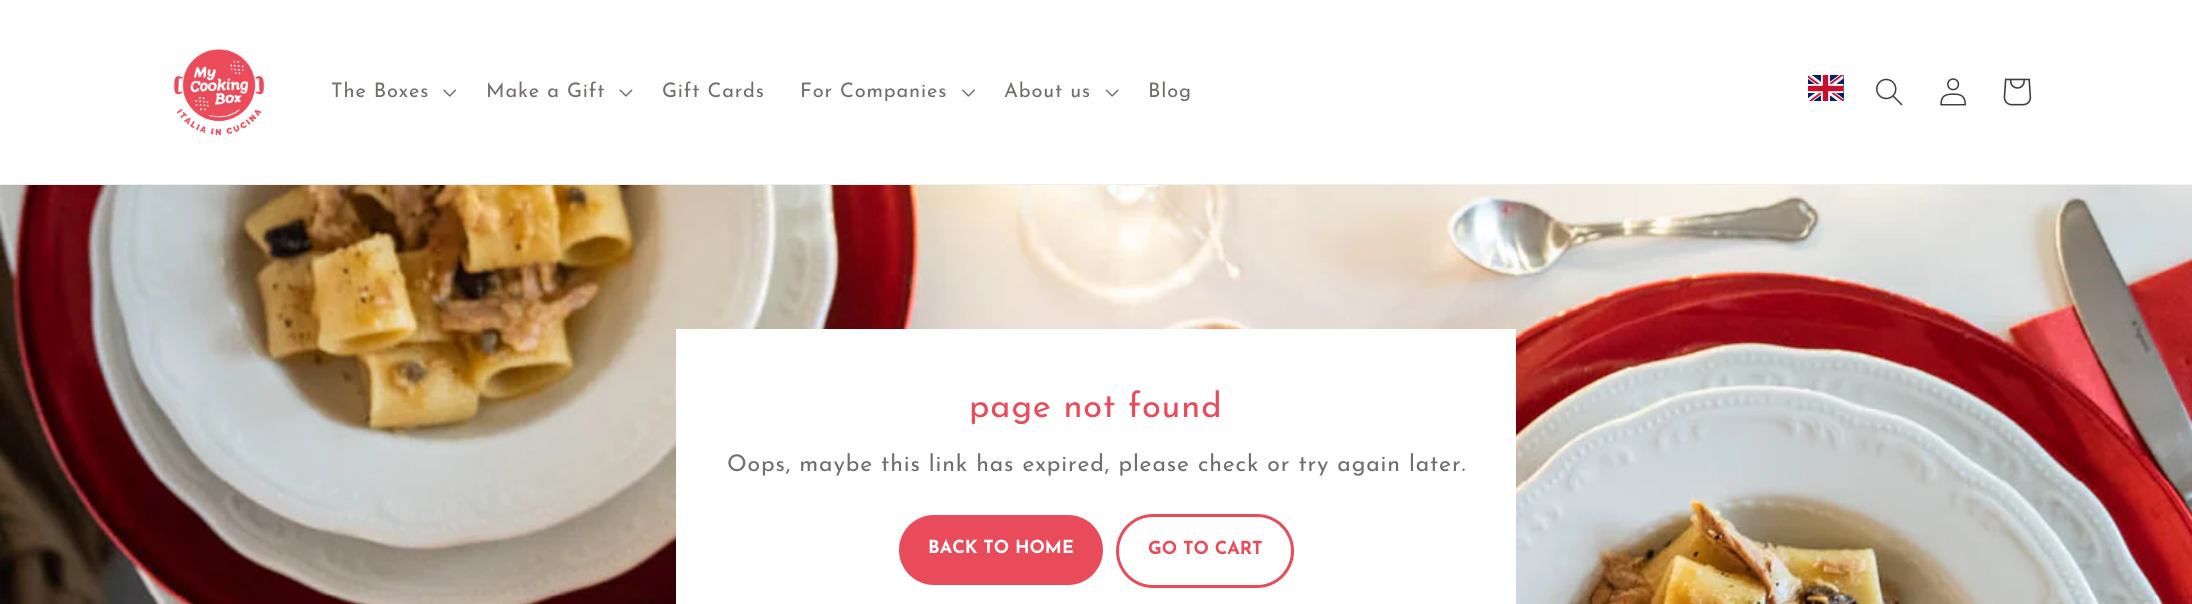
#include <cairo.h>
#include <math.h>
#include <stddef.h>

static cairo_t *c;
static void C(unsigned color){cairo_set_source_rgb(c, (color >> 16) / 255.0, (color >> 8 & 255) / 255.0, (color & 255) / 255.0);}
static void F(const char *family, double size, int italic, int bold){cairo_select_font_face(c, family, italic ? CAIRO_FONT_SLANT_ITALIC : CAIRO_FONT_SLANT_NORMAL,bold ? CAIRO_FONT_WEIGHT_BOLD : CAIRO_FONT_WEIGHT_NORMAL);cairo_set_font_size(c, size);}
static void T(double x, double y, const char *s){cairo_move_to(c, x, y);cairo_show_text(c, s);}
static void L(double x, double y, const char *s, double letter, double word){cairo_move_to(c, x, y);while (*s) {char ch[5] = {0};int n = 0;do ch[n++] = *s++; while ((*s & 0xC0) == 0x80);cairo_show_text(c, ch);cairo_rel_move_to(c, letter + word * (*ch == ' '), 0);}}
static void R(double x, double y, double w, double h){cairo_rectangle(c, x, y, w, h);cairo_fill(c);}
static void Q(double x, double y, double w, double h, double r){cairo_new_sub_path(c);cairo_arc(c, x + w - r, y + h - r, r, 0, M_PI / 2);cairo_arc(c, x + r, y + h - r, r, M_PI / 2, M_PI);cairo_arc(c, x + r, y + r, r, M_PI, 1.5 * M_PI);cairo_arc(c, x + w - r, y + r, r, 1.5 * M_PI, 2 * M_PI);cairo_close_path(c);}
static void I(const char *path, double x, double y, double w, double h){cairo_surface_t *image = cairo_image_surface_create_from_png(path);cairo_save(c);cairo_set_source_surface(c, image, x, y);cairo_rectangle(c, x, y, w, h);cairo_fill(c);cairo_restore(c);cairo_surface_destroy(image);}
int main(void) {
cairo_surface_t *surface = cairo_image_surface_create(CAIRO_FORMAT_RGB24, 2192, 604);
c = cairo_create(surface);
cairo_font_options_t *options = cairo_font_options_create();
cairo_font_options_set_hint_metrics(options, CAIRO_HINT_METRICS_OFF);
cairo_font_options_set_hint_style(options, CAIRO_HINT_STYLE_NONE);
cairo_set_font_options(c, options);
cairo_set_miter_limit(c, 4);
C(0xffffff);
cairo_paint(c);
C(0xf0efef);
R(0,184,2192,1);
I("1.png",173,49,92,87);
F("Josefin Sans",20,0,0);
C(0x716e6b);
L(331,97,"The Boxes",.85,0);
I("2.png",443,89,14,8);
L(486,97,"Make a Gift",.85,0);
I("3.png",619,89,14,8);
L(662,97,"Gift Cards",.85,0);
L(800,97,"For Companies",.85,0);
I("4.png",962,89,13,8);
L(1004,97,"About us",.85,0);
I("5.png",1105,89,14,8);
L(1148,97,"Blog",.85,0);
I("6.png",1808,75,36,26);
I("7.png",1876,78,27,28);
I("8.png",1940,78,26,28);
I("9.png",2003,78,29,28);
I("10.png",0,185,2192,419);
C(0xffffff);
R(676,329,840,275);
F("Josefin Sans",34.5,0,0);
C(0xe94b5b);
L(969,417,"page not found",.85,0);
F("Josefin Sans",23,0,0);
C(0x716e6b);
L(727,471,"Oops, maybe this link has expired, please check or try again later.",.85,0);
C(0xe94b5b);
Q(899,515,204,70,35);
cairo_fill(c);
F("Josefin Sans",18,0,1);
C(0xffffff);
T(928,553,"BACK TO HOME");
Q(1117.5,515.5,175,71,35.5);
C(0xe94b5b);
cairo_set_line_width(c,3);
cairo_stroke(c);
T(1148,554,"GO TO CART");
cairo_surface_write_to_png(surface, "o.png");
cairo_font_options_destroy(options);
cairo_destroy(c);
cairo_surface_destroy(surface);
return 0;
}
